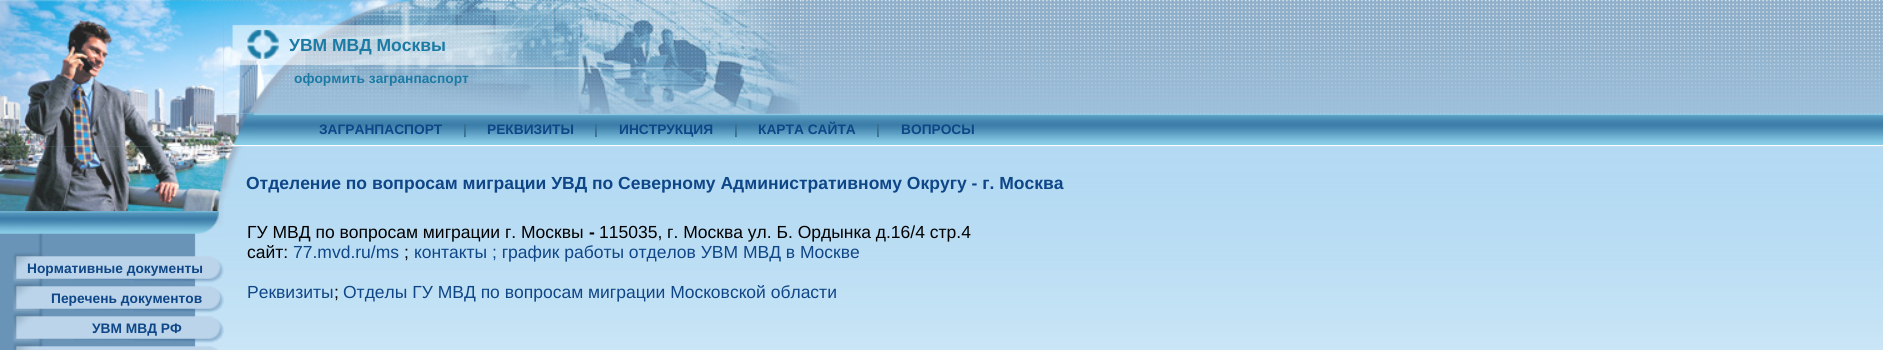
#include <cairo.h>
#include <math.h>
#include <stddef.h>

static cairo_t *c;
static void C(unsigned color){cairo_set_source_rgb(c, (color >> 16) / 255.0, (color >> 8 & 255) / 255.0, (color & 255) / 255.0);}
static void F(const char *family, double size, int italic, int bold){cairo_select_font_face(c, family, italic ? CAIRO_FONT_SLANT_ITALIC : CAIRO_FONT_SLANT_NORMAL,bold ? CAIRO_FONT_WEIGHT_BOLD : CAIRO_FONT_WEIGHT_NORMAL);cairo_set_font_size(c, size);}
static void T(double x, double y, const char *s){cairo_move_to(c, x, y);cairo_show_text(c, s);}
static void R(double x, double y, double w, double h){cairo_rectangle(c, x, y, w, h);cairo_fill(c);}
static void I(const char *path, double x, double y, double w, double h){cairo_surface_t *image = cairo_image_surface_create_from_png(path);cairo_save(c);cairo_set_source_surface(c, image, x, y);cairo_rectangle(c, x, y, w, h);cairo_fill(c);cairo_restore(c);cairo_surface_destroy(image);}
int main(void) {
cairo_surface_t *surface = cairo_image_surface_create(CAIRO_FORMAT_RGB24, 1883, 350);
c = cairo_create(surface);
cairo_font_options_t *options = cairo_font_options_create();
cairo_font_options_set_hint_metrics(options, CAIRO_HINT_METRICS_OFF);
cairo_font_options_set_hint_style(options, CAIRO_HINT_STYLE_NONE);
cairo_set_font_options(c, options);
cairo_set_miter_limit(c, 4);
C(0xffffff);
cairo_paint(c);
I("1.png",0,0,1883,147);
I("3.png",223,0,356,114);
I("6.png",223,113,1660,32);
I("9.png",0,146,1883,204);
I("10.png",0,146,196,204);
I("17.png",223,146,23,53);
I("2.png",0,0,224,147);
I("4.png",247,29,32,30);
F("Liberation Sans",17.5,0,1);
C(0x1c7ba5);
T(289,51,"УВМ МВД Москвы");
F("Liberation Sans",13.75,0,1);
T(294,83,"оформить загранпаспорт");
I("5.png",578,0,224,114);
I("7.png",223,113,31,32);
C(0x0e4687);
T(319,134,"ЗАГРАНПАСПОРТ");
C(0x387091);
T(463,134,"|");
C(0x0e4687);
T(487,134,"РЕКВИЗИТЫ");
C(0x387091);
T(594,134,"|");
C(0x0e4687);
T(619,134,"ИНСТРУКЦИЯ");
C(0x387091);
T(734,134,"|");
C(0x0e4687);
T(758,134,"КАРТА САЙТА");
C(0x387091);
T(876,134,"|");
C(0x0e4687);
T(901,134,"ВОПРОСЫ");
C(0xffffff);
R(238,145,1645,1);
I("8.png",223,145,16,2);
I("11.png",0,146,224,66);
I("12.png",0,211,224,23);
I("13.png",13,252,211,31);
C(0x0e4687);
T(27,273,"Нормативные документы");
I("14.png",13,283,211,30);
T(51,303,"Перечень документов");
I("15.png",13,313,211,30);
T(92,333,"УВМ МВД РФ");
I("16.png",13,343,205,7);
F("Liberation Sans",17.5,0,1);
T(246,189,"Отделение по вопросам миграции УВД по Северному Административному Округу - г. Москва");
F("Liberation Sans",17.5,0,0);
C(0x000000);
T(247,238,"ГУ МВД по вопросам миграции г. Москвы");
F("Liberation Sans",17.5,0,1);
T(589,238,"-");
F("Liberation Sans",17.5,0,0);
T(599,238,"115035, г. Москва ул. Б. Ордынка д.16/4 стр.4");
T(247,258,"сайт:");
C(0x0e4687);
T(293,258,"77.mvd.ru/ms");
C(0x000000);
T(404,258,";");
C(0x0e4687);
T(414,258,"контакты ; график работы отделов УВМ МВД в Москве");
T(247,298,"Реквизиты");
C(0x000000);
T(334,298,";");
C(0x0e4687);
T(343,298,"Отделы ГУ МВД по вопросам миграции Московской области");
cairo_surface_write_to_png(surface, "o.png");
cairo_font_options_destroy(options);
cairo_destroy(c);
cairo_surface_destroy(surface);
return 0;
}
